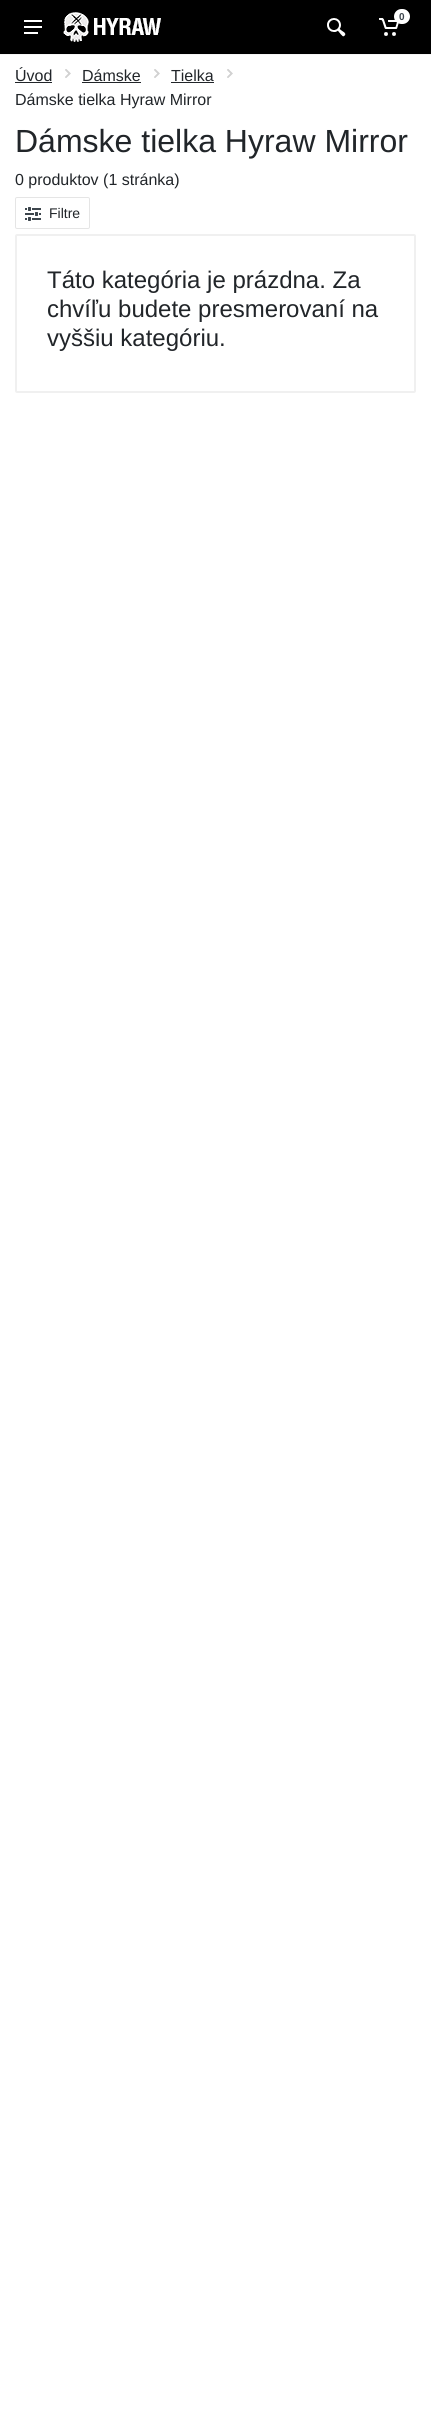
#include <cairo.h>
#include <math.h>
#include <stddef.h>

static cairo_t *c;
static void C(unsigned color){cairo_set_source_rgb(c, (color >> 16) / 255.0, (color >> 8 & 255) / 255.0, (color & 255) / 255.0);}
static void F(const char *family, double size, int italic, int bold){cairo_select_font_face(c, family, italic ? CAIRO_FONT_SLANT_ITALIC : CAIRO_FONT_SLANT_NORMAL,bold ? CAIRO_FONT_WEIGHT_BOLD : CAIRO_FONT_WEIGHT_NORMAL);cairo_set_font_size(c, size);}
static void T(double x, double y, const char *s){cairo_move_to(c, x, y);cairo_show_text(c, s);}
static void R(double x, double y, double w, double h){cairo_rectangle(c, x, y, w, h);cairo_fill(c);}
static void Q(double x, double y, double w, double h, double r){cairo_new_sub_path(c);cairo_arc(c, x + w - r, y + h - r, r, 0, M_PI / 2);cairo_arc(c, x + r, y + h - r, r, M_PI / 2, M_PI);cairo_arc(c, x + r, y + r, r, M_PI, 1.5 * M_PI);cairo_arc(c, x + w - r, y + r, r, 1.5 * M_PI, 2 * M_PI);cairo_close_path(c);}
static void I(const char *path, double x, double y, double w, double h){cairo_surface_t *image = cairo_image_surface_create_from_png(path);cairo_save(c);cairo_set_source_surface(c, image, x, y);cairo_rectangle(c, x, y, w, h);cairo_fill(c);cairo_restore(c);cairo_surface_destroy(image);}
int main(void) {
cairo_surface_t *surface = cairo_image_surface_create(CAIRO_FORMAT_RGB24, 431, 2411);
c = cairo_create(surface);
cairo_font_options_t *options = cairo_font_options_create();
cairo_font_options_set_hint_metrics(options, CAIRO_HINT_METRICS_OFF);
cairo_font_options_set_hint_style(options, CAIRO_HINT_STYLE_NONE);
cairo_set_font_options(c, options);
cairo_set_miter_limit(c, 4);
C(0xffffff);
cairo_paint(c);
C(0xf5f5f5);
R(0,54,431,1);
C(0x000000);
R(0,0,431,54);
I("1.png",63,12,98,30);
I("2.png",379,18,20,18);
C(0xffffff);
Q(394,9,16,15,7.5);
cairo_fill(c);
F("Liberation Sans",10,0,1);
C(0x3d464d);
T(399,20,"0");
I("3.png",327,18,19,19);
I("4.png",24,20,18,14);
F("Liberation Sans",16,0,0);
C(0x212529);
T(15,81,"Úvod");
R(15,82,37,1);
I("5.png",65,69,6,9);
T(82,81,"Dámske");
R(82,82,59,1);
I("5.png",154,69,6,9);
T(171,81,"Tielka");
R(171,82,43,1);
I("5.png",227,69,6,9);
T(15,105,"Dámske tielka Hyraw Mirror");
F("Liberation Sans",32,0,0);
T(15,152,"Dámske tielka Hyraw Mirror");
F("Liberation Sans",16,0,0);
T(15,185,"0 produktov (1 stránka)");
Q(15.5,197.5,74,31,1.5);
C(0xe5e5e5);
cairo_set_line_width(c,1);
cairo_stroke(c);
I("6.png",25,207,16,14);
F("Liberation Sans",14,0,0);
C(0x212529);
T(49,218,"Filtre");
Q(16,235,399,157,1);
C(0xf0f0f0);
cairo_set_line_width(c,2);
cairo_stroke(c);
F("Liberation Sans",24,0,0);
C(0x212529);
T(47,288,"Táto kategória je prázdna. Za");
T(47,317,"chvíľu budete presmerovaní na");
T(47,346,"vyššiu kategóriu.");
cairo_surface_write_to_png(surface, "o.png");
cairo_font_options_destroy(options);
cairo_destroy(c);
cairo_surface_destroy(surface);
return 0;
}
